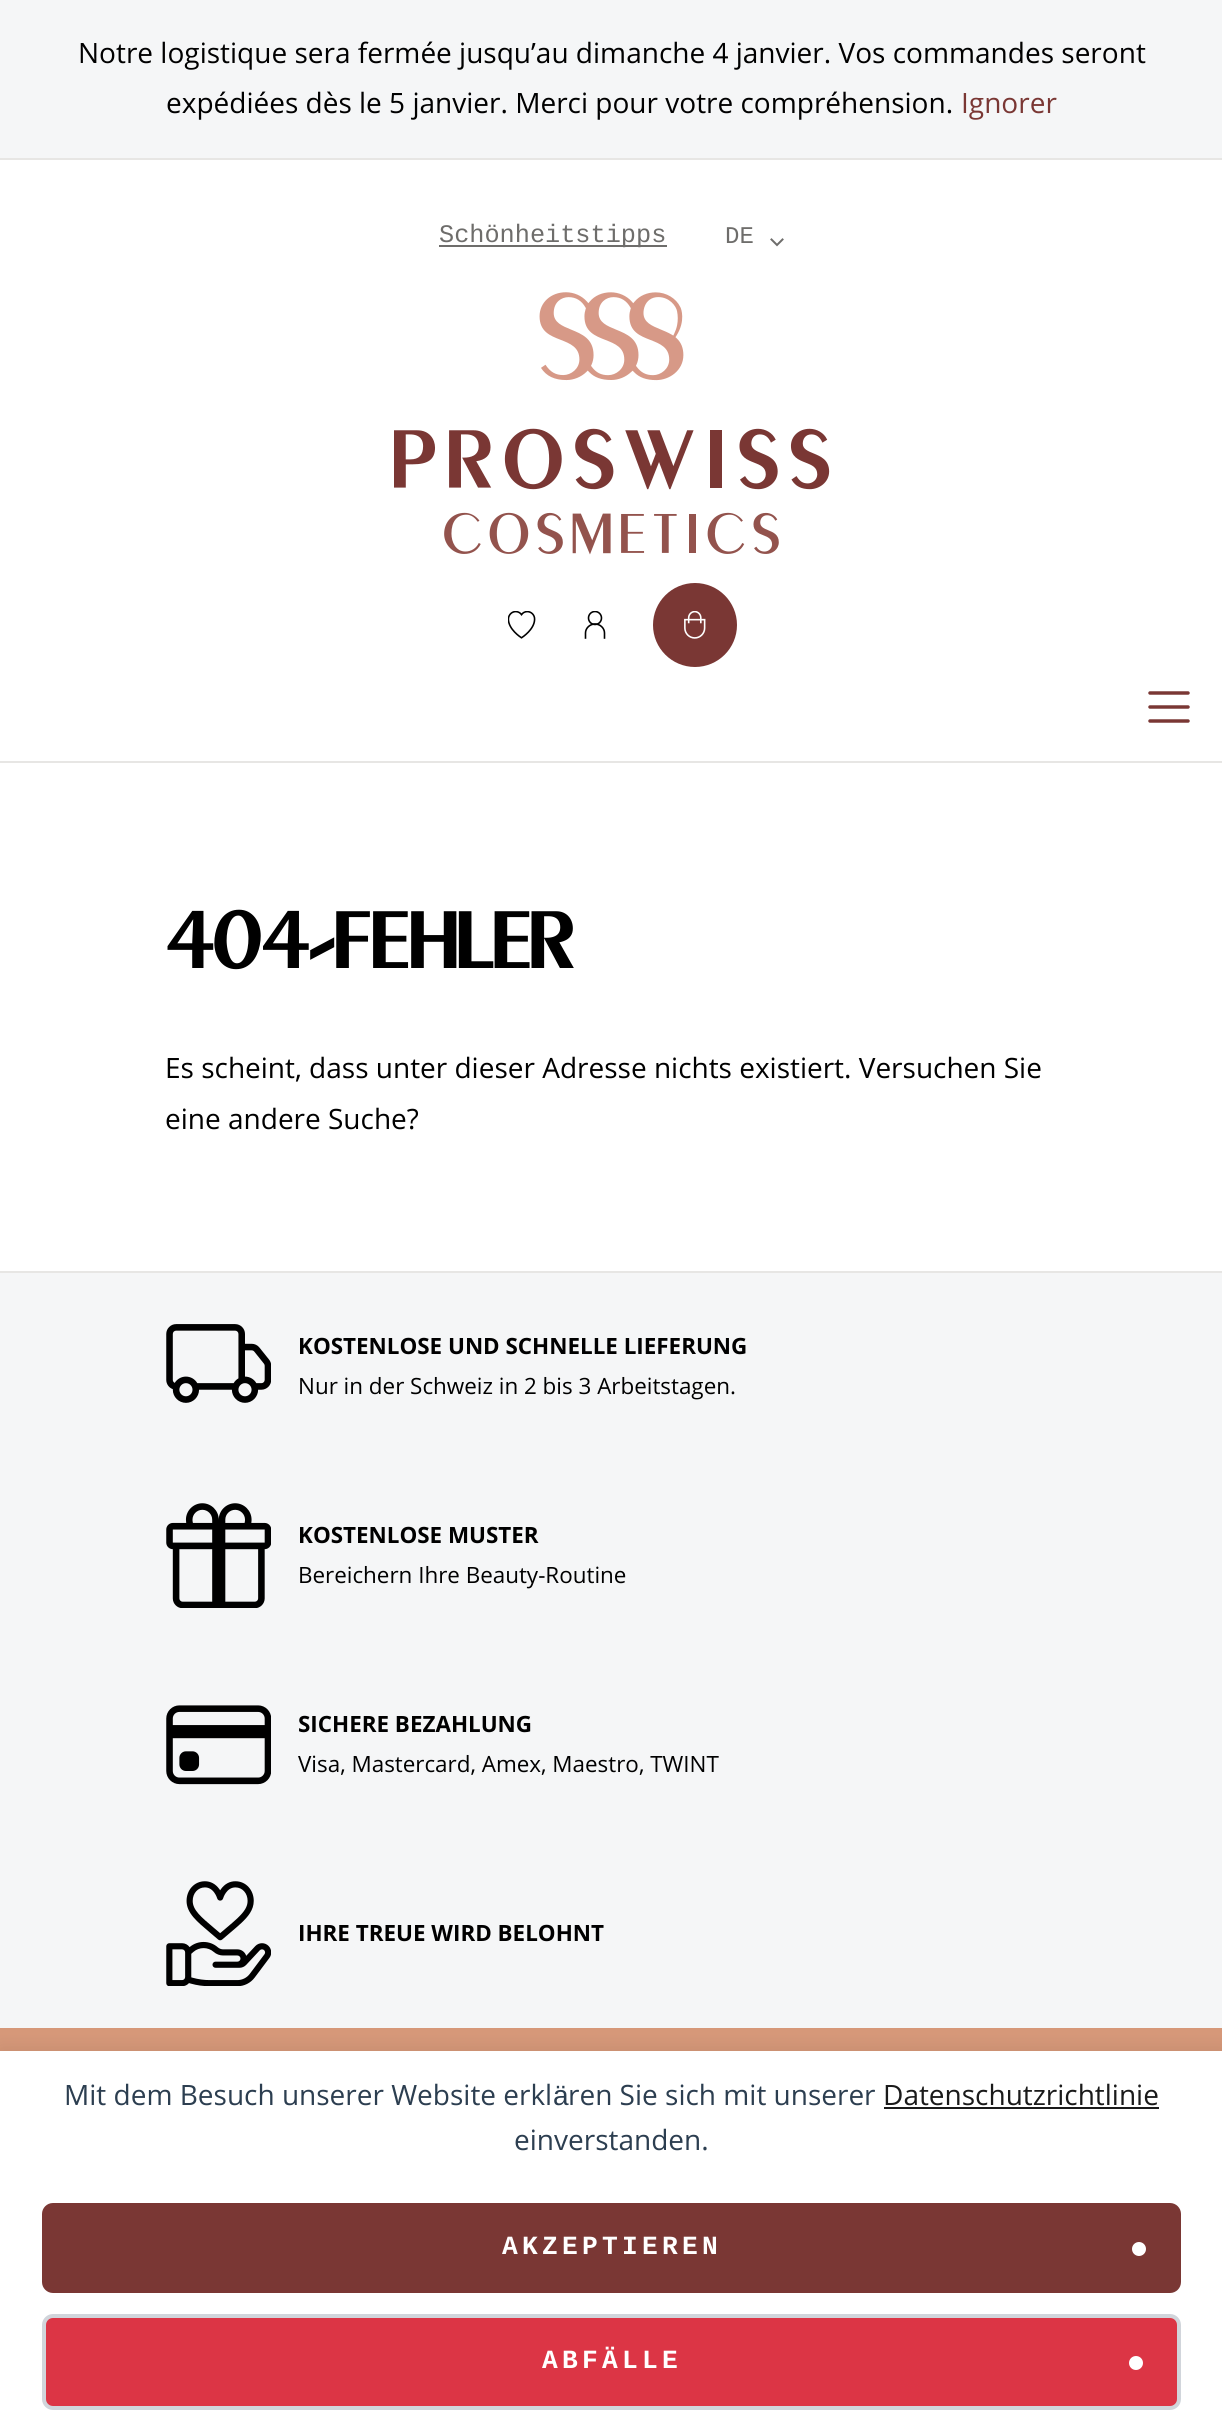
#include <cairo.h>
#include <math.h>
#include <stddef.h>

static cairo_t *c;
static void C(unsigned color){cairo_set_source_rgb(c, (color >> 16) / 255.0, (color >> 8 & 255) / 255.0, (color & 255) / 255.0);}
static void F(const char *family, double size, int italic, int bold){cairo_select_font_face(c, family, italic ? CAIRO_FONT_SLANT_ITALIC : CAIRO_FONT_SLANT_NORMAL,bold ? CAIRO_FONT_WEIGHT_BOLD : CAIRO_FONT_WEIGHT_NORMAL);cairo_set_font_size(c, size);}
static void T(double x, double y, const char *s){cairo_move_to(c, x, y);cairo_show_text(c, s);}
static void L(double x, double y, const char *s, double letter, double word){cairo_move_to(c, x, y);while (*s) {char ch[5] = {0};int n = 0;do ch[n++] = *s++; while ((*s & 0xC0) == 0x80);cairo_show_text(c, ch);cairo_rel_move_to(c, letter + word * (*ch == ' '), 0);}}
static void R(double x, double y, double w, double h){cairo_rectangle(c, x, y, w, h);cairo_fill(c);}
static void Q(double x, double y, double w, double h, double r){cairo_new_sub_path(c);cairo_arc(c, x + w - r, y + h - r, r, 0, M_PI / 2);cairo_arc(c, x + r, y + h - r, r, M_PI / 2, M_PI);cairo_arc(c, x + r, y + r, r, M_PI, 1.5 * M_PI);cairo_arc(c, x + w - r, y + r, r, 1.5 * M_PI, 2 * M_PI);cairo_close_path(c);}
static void S(double x, double y, double w, double h, double r, double blur, double alpha){cairo_push_group_with_content(c, CAIRO_CONTENT_ALPHA);cairo_set_operator(c, CAIRO_OPERATOR_SOURCE);for (int i = 15; i >= -15 && fmin(w, h) + blur * i / 3 > 0; i -= 2) {double e = blur * i / 6;cairo_set_source_rgba(c, 0, 0, 0, alpha * erfc((i - 1) / 8.5) / 2);Q(x - e, y - e, w + 2 * e, h + 2 * e, fmax(0, fmin(r + e + blur * .6, fmin(w, h) / 2 + e)));cairo_fill(c);}cairo_pattern_t *soft = cairo_pop_group(c);cairo_mask(c, soft);cairo_pattern_destroy(soft);}
static void I(const char *path, double x, double y, double w, double h){cairo_surface_t *image = cairo_image_surface_create_from_png(path);cairo_save(c);cairo_set_source_surface(c, image, x, y);cairo_rectangle(c, x, y, w, h);cairo_fill(c);cairo_restore(c);cairo_surface_destroy(image);}
int main(void) {
cairo_surface_t *surface = cairo_image_surface_create(CAIRO_FORMAT_RGB24, 1222, 2430);
c = cairo_create(surface);
cairo_font_options_t *options = cairo_font_options_create();
cairo_font_options_set_hint_metrics(options, CAIRO_HINT_METRICS_OFF);
cairo_font_options_set_hint_style(options, CAIRO_HINT_STYLE_NONE);
cairo_set_font_options(c, options);
cairo_set_miter_limit(c, 4);
C(0xffffff);
cairo_paint(c);
C(0xf5f6f7);
R(0,0,1222,158);
C(0xe7e6e4);
R(0,158,1222,2);
F("Open Sans",28,0,0);
C(0x000000);
T(78,63,"Notre logistique sera fermée jusqu’au dimanche 4 janvier. Vos commandes seront");
T(166,113,"expédiées dès le 5 janvier. Merci pour votre compréhension.");
C(0x7a3734);
T(961,113,"Ignorer");
C(0x6e6d6b);
R(439,245,228,2);
F("Liberation Mono",25.25,0,0);
T(439,242,"Schönheitstipps");
F("Liberation Mono",24,0,0);
T(725,243,"DE");
cairo_new_path(c);
cairo_move_to(c,771.5,239.5);
cairo_line_to(c,777,245);
cairo_move_to(c,782.5,239.5);
cairo_line_to(c,777,245);
cairo_set_line_cap(c,CAIRO_LINE_CAP_SQUARE);
cairo_stroke(c);
I("1.png",394,292,436,263);
I("2.png",508,611,28,28);
cairo_save(c);
cairo_rectangle(c,581,611,28,28);
cairo_clip(c);
cairo_arc(c,595,618,6.5,0,2 * M_PI);
C(0x000000);
cairo_set_line_width(c,1.6);
cairo_set_line_cap(c,CAIRO_LINE_CAP_BUTT);
cairo_stroke(c);
cairo_restore(c);
cairo_new_path(c);
cairo_move_to(c,585.5,638);
cairo_line_to(c,585.5,633);
cairo_curve_to(c,585.5,628,590,624,595,624);
cairo_curve_to(c,600,624,604.5,628,604.5,633);
cairo_line_to(c,604.5,638);
C(0x000000);
cairo_set_line_width(c,1.6);
cairo_stroke(c);
C(0x7a3734);
cairo_arc(c,695,625,42,0,2 * M_PI);
cairo_fill(c);
I("3.png",684,611,22,28);
C(0xe7e6e4);
R(0,761,1222,2);
cairo_new_path(c);
cairo_move_to(c,1150,693);
cairo_line_to(c,1188,693);
cairo_move_to(c,1150,707);
cairo_line_to(c,1188,707);
cairo_move_to(c,1150,721);
cairo_line_to(c,1188,721);
C(0x7a3734);
cairo_set_line_width(c,3.5);
cairo_set_line_cap(c,CAIRO_LINE_CAP_ROUND);
cairo_stroke(c);
F("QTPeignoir",84,0,1);
C(0x000000);
T(165,968,"404-FEHLER");
F("Open Sans",28,0,0);
T(165,1078,"Es scheint, dass unter dieser Adresse nichts existiert. Versuchen Sie");
T(165,1129,"eine andere Suche?");
C(0xf5f6f7);
R(0,1273,1222,755);
C(0xe7e6e4);
R(0,1271,1222,2);
I("4.png",166,1324,105,79);
F("Open Sans",22.4,0,1);
C(0x000000);
T(298,1354,"KOSTENLOSE UND SCHNELLE LIEFERUNG");
F("Open Sans",22.4,0,0);
T(298,1394,"Nur in der Schweiz in 2 bis 3 Arbeitstagen.");
I("5.png",166,1503,105,105);
F("Open Sans",22.4,0,1);
T(298,1543,"KOSTENLOSE MUSTER");
F("Open Sans",22.4,0,0);
T(298,1583,"Bereichern Ihre Beauty-Routine");
I("6.png",166,1705,105,80);
F("Open Sans",22.4,0,1);
T(298,1732,"SICHERE BEZAHLUNG");
F("Open Sans",22.4,0,0);
T(298,1772,"Visa, Mastercard, Amex, Maestro, TWINT");
I("7.png",166,1881,105,105);
F("Open Sans",22.4,0,1);
T(298,1941,"IHRE TREUE WIRD BELOHNT");
C(0xd69879);
R(0,2028,1222,23);
C(0x000000);
S(0,2048,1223,379,0,9,.08);
C(0xffffff);
R(0,2051,1222,379);
F("Open Sans",28,0,0);
C(0x2c3e50);
T(64,2105,"Mit dem Besuch unserer Website erkl");
F("Liberation Sans",28,0,0);
T(553,2105,"ä");
F("Open Sans",28,0,0);
T(568,2105,"ren Sie sich mit unserer");
C(0x1a1a1a);
T(883,2105,"Datenschutzrichtlinie");
R(884,2107,275,2);
C(0x2c3e50);
T(514,2150,"einverstanden.");
C(0x7a3734);
Q(42,2203,1139,90,11);
cairo_fill(c);
F("Liberation Mono",26.25,0,1);
C(0xffffff);
L(502,2254,"AKZEPTIEREN",4.25,0);
cairo_new_path(c);
cairo_arc(c,1139,2249,7,0,2 * M_PI);
cairo_fill(c);
C(0xdc3545);
Q(44,2316,1135,92,9);
cairo_fill_preserve(c);
C(0xd1d5db);
cairo_set_line_width(c,4);
cairo_set_line_cap(c,CAIRO_LINE_CAP_BUTT);
cairo_stroke(c);
C(0xffffff);
L(542,2368,"ABFÄLLE",4.25,0);
cairo_new_path(c);
cairo_arc(c,1136,2363,7,0,2 * M_PI);
cairo_fill(c);
cairo_surface_write_to_png(surface, "o.png");
cairo_font_options_destroy(options);
cairo_destroy(c);
cairo_surface_destroy(surface);
return 0;
}
